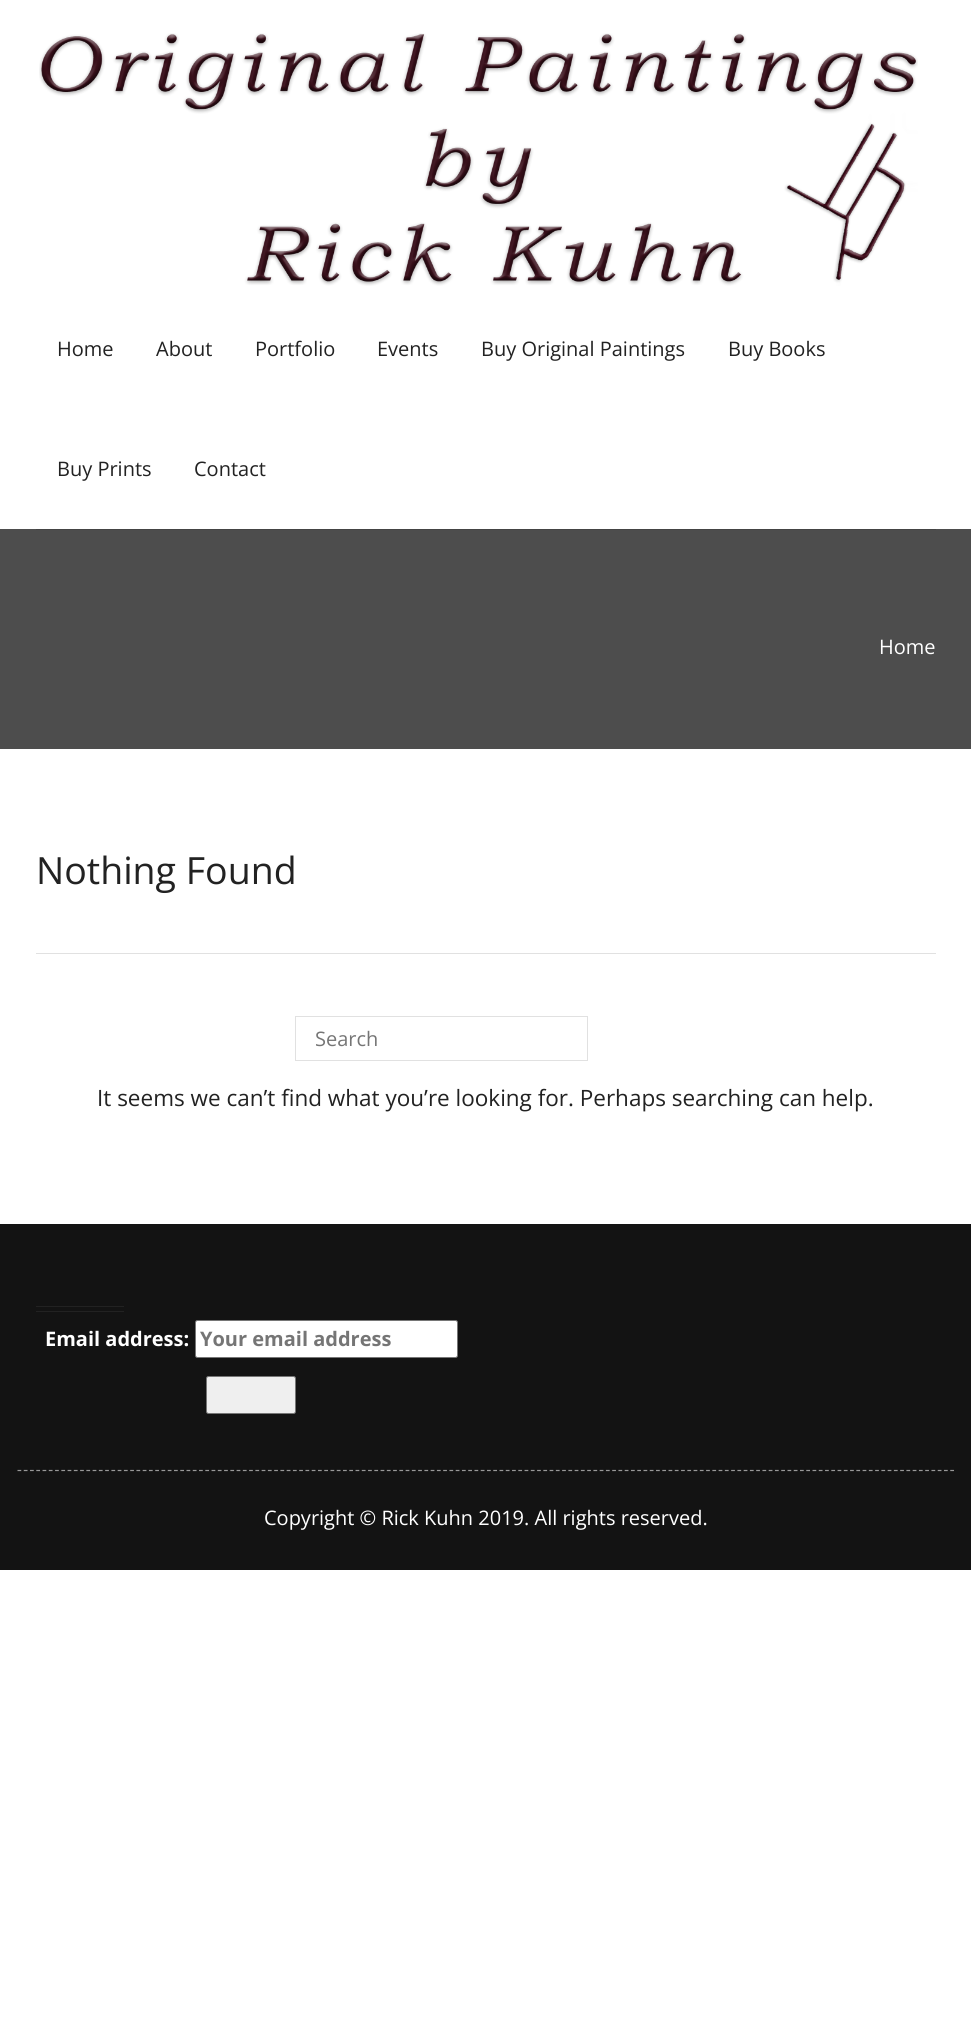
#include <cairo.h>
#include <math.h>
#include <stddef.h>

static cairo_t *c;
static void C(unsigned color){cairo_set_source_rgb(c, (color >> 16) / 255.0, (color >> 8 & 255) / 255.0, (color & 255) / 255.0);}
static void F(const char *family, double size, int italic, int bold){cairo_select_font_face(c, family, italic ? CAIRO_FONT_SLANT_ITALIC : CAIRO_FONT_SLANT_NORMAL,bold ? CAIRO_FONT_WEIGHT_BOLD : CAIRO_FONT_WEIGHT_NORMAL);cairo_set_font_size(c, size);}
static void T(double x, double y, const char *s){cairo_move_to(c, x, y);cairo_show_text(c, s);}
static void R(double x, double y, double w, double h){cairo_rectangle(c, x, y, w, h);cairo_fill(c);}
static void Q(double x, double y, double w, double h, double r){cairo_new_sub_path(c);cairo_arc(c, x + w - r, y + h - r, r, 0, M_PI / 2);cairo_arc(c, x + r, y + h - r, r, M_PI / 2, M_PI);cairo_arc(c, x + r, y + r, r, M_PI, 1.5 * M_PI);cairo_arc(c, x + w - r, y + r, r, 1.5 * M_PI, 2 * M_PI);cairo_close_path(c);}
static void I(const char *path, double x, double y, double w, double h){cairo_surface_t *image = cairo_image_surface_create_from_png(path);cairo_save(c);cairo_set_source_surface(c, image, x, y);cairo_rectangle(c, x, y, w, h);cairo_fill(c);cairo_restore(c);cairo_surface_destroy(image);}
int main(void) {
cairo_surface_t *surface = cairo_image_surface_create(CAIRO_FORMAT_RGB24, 971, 2033);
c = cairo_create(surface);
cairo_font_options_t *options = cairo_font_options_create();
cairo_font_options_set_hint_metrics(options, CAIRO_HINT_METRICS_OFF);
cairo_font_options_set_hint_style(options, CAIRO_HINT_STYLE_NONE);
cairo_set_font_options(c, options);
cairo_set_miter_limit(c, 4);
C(0xffffff);
cairo_paint(c);
C(0x4d4d4d);
R(0,529,971,220);
I("1.png",39,33,879,253);
F("Open Sans",20,0,0);
C(0x222222);
T(57,356,"Home");
T(156,356,"About");
T(255,356,"Portfolio");
T(377,356,"Events");
T(481,356,"Buy Original Paintings");
T(728,356,"Buy Books");
T(57,476,"Buy Prints");
T(194,476,"Contact");
C(0xffffff);
T(879,654,"Home");
C(0x444444);
R(36,529,900,1);
F("Open Sans",37.5,0,0);
C(0x222222);
T(36,884,"Nothing Found");
C(0xe1e1e1);
R(36,953,900,1);
cairo_rectangle(c,295.5,1016.5,292,44);
cairo_set_line_width(c,1);
cairo_stroke(c);
F("Open Sans",20,0,0);
C(0x757575);
T(315,1046,"Search");
F("Open Sans",22.5,0,0);
C(0x222222);
T(97,1106,"It seems we can’t find what you’re looking for. Perhaps searching can help.");
C(0x131313);
R(0,1224,971,346);
C(0x222222);
R(36,1306,88,1);
R(36,1311,88,1);
F("Open Sans",20,0,1);
C(0xffffff);
T(45,1346,"Email address:");
Q(195.5,1320.5,262,37,2);
cairo_fill_preserve(c);
C(0x767676);
cairo_stroke(c);
C(0x757575);
T(200,1346,"Your email address");
C(0xefefef);
Q(206.5,1376.5,89,37,2);
cairo_fill_preserve(c);
C(0x767676);
cairo_stroke(c);
cairo_new_path(c);
cairo_move_to(c,17.5,1470.5);
cairo_line_to(c,955,1470.5);
C(0x999999);
cairo_set_line_width(c,1.2);
cairo_set_dash(c,(double[]){3.75,2.51},2,0);
cairo_stroke(c);
F("Open Sans",20,0,0);
C(0xffffff);
T(264,1525,"Copyright © Rick Kuhn 2019. All rights reserved.");
cairo_surface_write_to_png(surface, "o.png");
cairo_font_options_destroy(options);
cairo_destroy(c);
cairo_surface_destroy(surface);
return 0;
}
